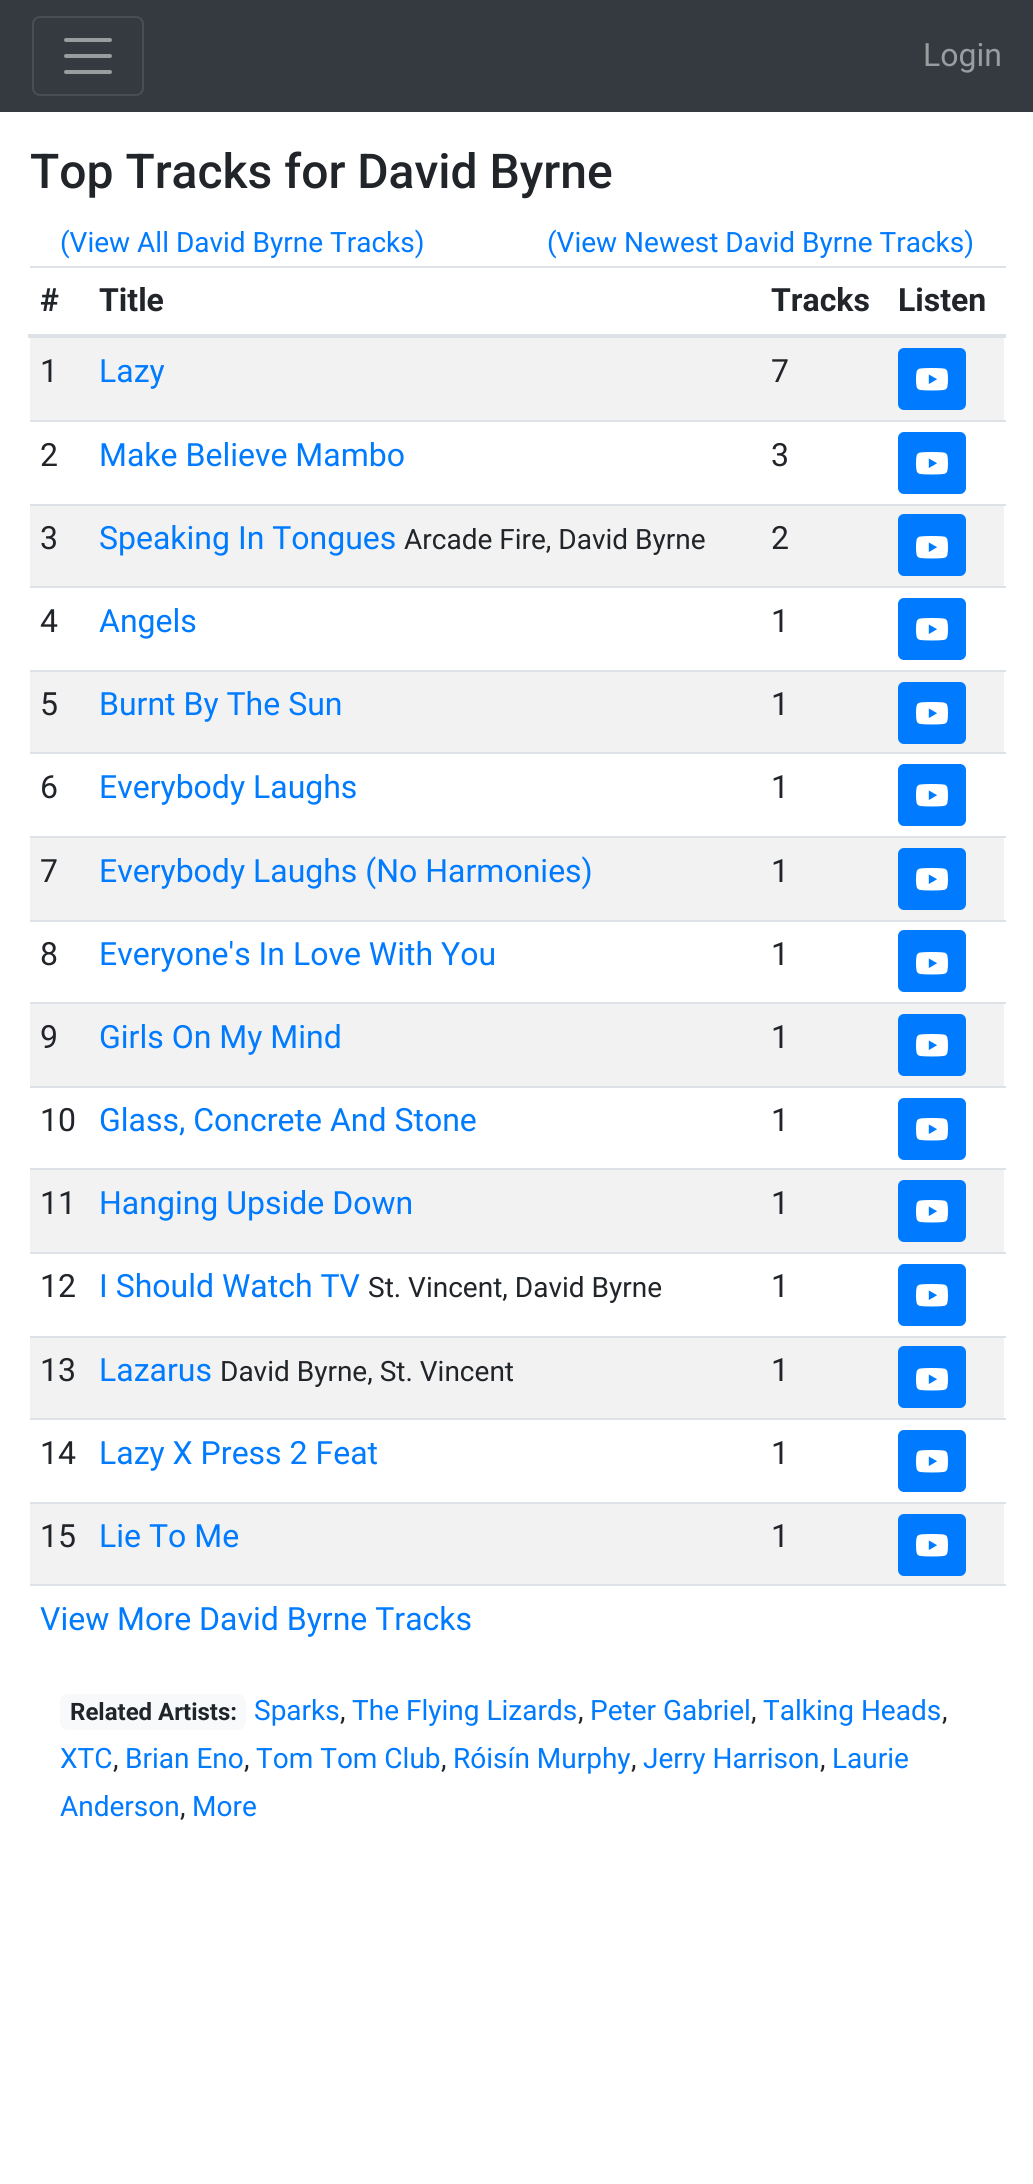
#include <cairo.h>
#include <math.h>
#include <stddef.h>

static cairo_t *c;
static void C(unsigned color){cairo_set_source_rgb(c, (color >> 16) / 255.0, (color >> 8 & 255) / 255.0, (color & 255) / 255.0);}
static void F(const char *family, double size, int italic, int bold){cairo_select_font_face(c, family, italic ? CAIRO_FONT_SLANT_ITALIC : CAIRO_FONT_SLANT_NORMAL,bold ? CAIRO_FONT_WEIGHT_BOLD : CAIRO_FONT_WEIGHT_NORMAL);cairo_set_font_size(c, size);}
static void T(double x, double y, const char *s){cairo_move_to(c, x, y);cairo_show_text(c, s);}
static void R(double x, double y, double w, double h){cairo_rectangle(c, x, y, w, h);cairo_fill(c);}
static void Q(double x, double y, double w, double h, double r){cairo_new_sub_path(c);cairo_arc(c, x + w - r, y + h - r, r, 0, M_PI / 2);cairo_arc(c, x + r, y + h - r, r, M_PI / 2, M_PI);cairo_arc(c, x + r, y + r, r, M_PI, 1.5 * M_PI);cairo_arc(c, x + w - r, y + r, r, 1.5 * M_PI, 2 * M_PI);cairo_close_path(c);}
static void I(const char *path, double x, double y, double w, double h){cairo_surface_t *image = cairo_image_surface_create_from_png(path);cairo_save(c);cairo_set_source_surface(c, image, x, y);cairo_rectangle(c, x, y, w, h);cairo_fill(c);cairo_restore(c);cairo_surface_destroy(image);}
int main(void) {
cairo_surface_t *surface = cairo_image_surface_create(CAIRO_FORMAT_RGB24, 1033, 2184);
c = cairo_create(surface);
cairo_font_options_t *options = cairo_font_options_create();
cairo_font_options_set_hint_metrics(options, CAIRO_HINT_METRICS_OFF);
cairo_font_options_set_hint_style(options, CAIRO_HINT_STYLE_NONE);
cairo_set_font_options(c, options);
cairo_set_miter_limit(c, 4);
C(0xffffff);
cairo_paint(c);
C(0x343a40);
R(0,0,1033,112);
Q(33,17,110,78,7);
C(0x484e53);
cairo_stroke(c);
cairo_new_path(c);
cairo_move_to(c,66,40);
cairo_line_to(c,110,40);
cairo_move_to(c,66,56);
cairo_line_to(c,110,56);
cairo_move_to(c,66,72);
cairo_line_to(c,110,72);
C(0x9a9da0);
cairo_set_line_width(c,4);
cairo_set_line_cap(c,CAIRO_LINE_CAP_ROUND);
cairo_stroke(c);
F("Roboto",32,0,0);
T(923,66,"Login");
F("Roboto Medium",48,0,0);
C(0x212529);
T(30,188,"Top Tracks for David Byrne");
F("Roboto",28,0,0);
C(0x007bff);
T(60,252,"(View All David Byrne Tracks)");
T(547,252,"(View Newest David Byrne Tracks)");
F("Roboto",32,0,1);
C(0x212529);
T(40,311,"#");
T(99,311,"Title");
T(771,311,"Tracks");
C(0xdee2e6);
R(30,266,976,2);
R(28,334,978,4);
C(0x212529);
T(898,311,"Listen");
C(0xf2f2f2);
R(30,338,974,82);
F("Roboto",32,0,0);
C(0x212529);
T(40,382,"1");
C(0x007bff);
T(99,382,"Lazy");
C(0x212529);
T(771,382,"7");
C(0x007bff);
Q(899,349,66,60,5);
cairo_fill_preserve(c);
cairo_set_line_width(c,2);
cairo_set_line_cap(c,CAIRO_LINE_CAP_BUTT);
cairo_stroke(c);
I("1.png",916,368,32,23);
C(0xdee2e6);
R(30,420,976,2);
C(0x007bff);
Q(899,433,66,60,5);
cairo_fill_preserve(c);
cairo_stroke(c);
I("1.png",916,452,32,23);
C(0x212529);
T(40,466,"2");
C(0x007bff);
T(99,466,"Make Believe Mambo");
C(0x212529);
T(771,466,"3");
C(0xf2f2f2);
R(30,506,974,80);
C(0xdee2e6);
R(30,504,976,2);
C(0x007bff);
Q(899,515,66,60,5);
cairo_fill_preserve(c);
cairo_stroke(c);
I("1.png",916,536,32,23);
C(0x212529);
T(40,549,"3");
C(0x007bff);
T(99,549,"Speaking In Tongues");
F("Roboto",28,0,0);
C(0x212529);
T(404,549,"Arcade Fire, David Byrne");
F("Roboto",32,0,0);
T(771,549,"2");
C(0xdee2e6);
R(30,586,976,2);
C(0x007bff);
Q(899,599,66,60,5);
cairo_fill_preserve(c);
cairo_stroke(c);
I("1.png",916,618,32,23);
C(0x212529);
T(40,632,"4");
C(0x007bff);
T(99,632,"Angels");
C(0x212529);
T(771,632,"1");
C(0xf2f2f2);
R(30,672,974,80);
C(0xdee2e6);
R(30,670,976,2);
C(0x007bff);
Q(899,683,66,60,5);
cairo_fill_preserve(c);
cairo_stroke(c);
I("1.png",916,702,32,23);
C(0x212529);
T(40,715,"5");
C(0x007bff);
T(99,715,"Burnt By The Sun");
C(0x212529);
T(771,715,"1");
C(0xdee2e6);
R(30,752,976,2);
C(0x007bff);
Q(899,765,66,60,5);
cairo_fill_preserve(c);
cairo_stroke(c);
I("1.png",916,784,32,23);
C(0x212529);
T(40,798,"6");
C(0x007bff);
T(99,798,"Everybody Laughs");
C(0x212529);
T(771,798,"1");
C(0xf2f2f2);
R(30,838,974,82);
C(0xdee2e6);
R(30,836,976,2);
C(0x007bff);
Q(899,849,66,60,5);
cairo_fill_preserve(c);
cairo_stroke(c);
I("1.png",916,868,32,23);
C(0x212529);
T(40,882,"7");
C(0x007bff);
T(99,882,"Everybody Laughs (No Harmonies)");
C(0x212529);
T(771,882,"1");
C(0xdee2e6);
R(30,920,976,2);
C(0x007bff);
Q(899,931,66,60,5);
cairo_fill_preserve(c);
cairo_stroke(c);
I("1.png",916,952,32,23);
C(0x212529);
T(40,965,"8");
C(0x007bff);
T(99,965,"Everyone's In Love With You");
C(0x212529);
T(771,965,"1");
C(0xf2f2f2);
R(30,1004,974,82);
C(0xdee2e6);
R(30,1002,976,2);
C(0x007bff);
Q(899,1015,66,60,5);
cairo_fill_preserve(c);
cairo_stroke(c);
I("1.png",916,1034,32,23);
C(0x212529);
T(40,1048,"9");
C(0x007bff);
T(99,1048,"Girls On My Mind");
C(0x212529);
T(771,1048,"1");
C(0xdee2e6);
R(30,1086,976,2);
C(0x007bff);
Q(899,1099,66,60,5);
cairo_fill_preserve(c);
cairo_stroke(c);
I("1.png",916,1118,32,23);
C(0x212529);
T(40,1131,"10");
C(0x007bff);
T(99,1131,"Glass, Concrete And Stone");
C(0x212529);
T(771,1131,"1");
C(0xf2f2f2);
R(30,1170,974,82);
C(0xdee2e6);
R(30,1168,976,2);
C(0x007bff);
Q(899,1181,66,60,5);
cairo_fill_preserve(c);
cairo_stroke(c);
I("1.png",916,1200,32,23);
C(0x212529);
T(40,1214,"11");
C(0x007bff);
T(99,1214,"Hanging Upside Down");
C(0x212529);
T(771,1214,"1");
C(0xdee2e6);
R(30,1252,976,2);
C(0x007bff);
Q(899,1265,66,60,5);
cairo_fill_preserve(c);
cairo_stroke(c);
I("1.png",916,1284,32,23);
C(0x212529);
T(40,1297,"12");
C(0x007bff);
T(99,1297,"I Should Watch TV");
F("Roboto",28,0,0);
C(0x212529);
T(368,1297,"St. Vincent, David Byrne");
F("Roboto",32,0,0);
T(771,1297,"1");
C(0xf2f2f2);
R(30,1338,974,80);
C(0xdee2e6);
R(30,1336,976,2);
C(0x007bff);
Q(899,1347,66,60,5);
cairo_fill_preserve(c);
cairo_stroke(c);
I("1.png",916,1368,32,23);
C(0x212529);
T(40,1381,"13");
C(0x007bff);
T(99,1381,"Lazarus");
F("Roboto",28,0,0);
C(0x212529);
T(220,1381,"David Byrne, St. Vincent");
F("Roboto",32,0,0);
T(771,1381,"1");
C(0xdee2e6);
R(30,1418,976,2);
C(0x007bff);
Q(899,1431,66,60,5);
cairo_fill_preserve(c);
cairo_stroke(c);
I("1.png",916,1450,32,23);
C(0x212529);
T(40,1464,"14");
C(0x007bff);
T(99,1464,"Lazy X Press 2 Feat");
C(0x212529);
T(771,1464,"1");
C(0xf2f2f2);
R(30,1504,974,80);
C(0xdee2e6);
R(30,1502,976,2);
C(0x007bff);
Q(899,1515,66,60,5);
cairo_fill_preserve(c);
cairo_stroke(c);
I("1.png",916,1534,32,23);
C(0x212529);
T(40,1547,"15");
C(0x007bff);
T(99,1547,"Lie To Me");
C(0x212529);
T(771,1547,"1");
C(0xdee2e6);
R(30,1584,976,2);
C(0x007bff);
T(40,1630,"View More David Byrne Tracks");
C(0xf8f9fa);
Q(60,1694,186,36,8);
cairo_fill(c);
F("Roboto",24,0,1);
C(0x212529);
T(70,1720,"Related Artists:");
F("Roboto",28,0,0);
C(0x007bff);
T(254,1720,"Sparks");
C(0x212529);
T(340,1720,",");
C(0x007bff);
T(352,1720,"The Flying Lizards");
C(0x212529);
T(578,1720,",");
C(0x007bff);
T(590,1720,"Peter Gabriel");
C(0x212529);
T(751,1720,",");
C(0x007bff);
T(763,1720,"Talking Heads");
C(0x212529);
T(942,1720,",");
C(0x007bff);
T(60,1768,"XTC");
C(0x212529);
T(113,1768,",");
C(0x007bff);
T(125,1768,"Brian Eno");
C(0x212529);
T(244,1768,",");
C(0x007bff);
T(256,1768,"Tom Tom Club");
C(0x212529);
T(441,1768,",");
C(0x007bff);
T(453,1768,"Róisín Murphy");
C(0x212529);
T(631,1768,",");
C(0x007bff);
T(643,1768,"Jerry Harrison");
C(0x212529);
T(820,1768,",");
C(0x007bff);
T(832,1768,"Laurie");
T(60,1816,"Anderson");
C(0x212529);
T(180,1816,",");
C(0x007bff);
T(192,1816,"More");
cairo_surface_write_to_png(surface, "o.png");
cairo_font_options_destroy(options);
cairo_destroy(c);
cairo_surface_destroy(surface);
return 0;
}
